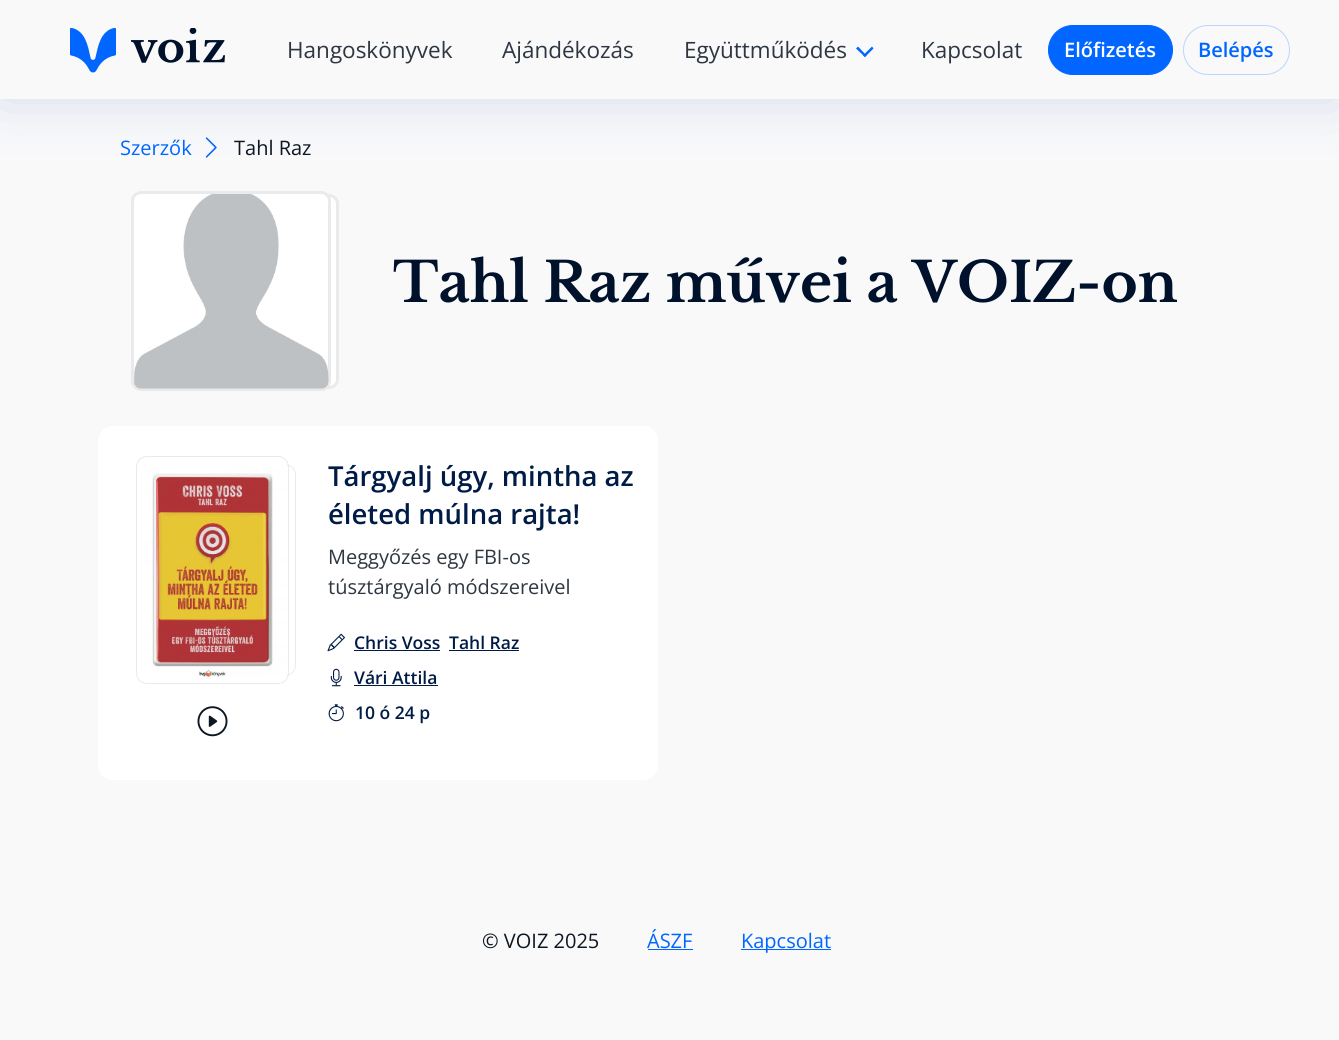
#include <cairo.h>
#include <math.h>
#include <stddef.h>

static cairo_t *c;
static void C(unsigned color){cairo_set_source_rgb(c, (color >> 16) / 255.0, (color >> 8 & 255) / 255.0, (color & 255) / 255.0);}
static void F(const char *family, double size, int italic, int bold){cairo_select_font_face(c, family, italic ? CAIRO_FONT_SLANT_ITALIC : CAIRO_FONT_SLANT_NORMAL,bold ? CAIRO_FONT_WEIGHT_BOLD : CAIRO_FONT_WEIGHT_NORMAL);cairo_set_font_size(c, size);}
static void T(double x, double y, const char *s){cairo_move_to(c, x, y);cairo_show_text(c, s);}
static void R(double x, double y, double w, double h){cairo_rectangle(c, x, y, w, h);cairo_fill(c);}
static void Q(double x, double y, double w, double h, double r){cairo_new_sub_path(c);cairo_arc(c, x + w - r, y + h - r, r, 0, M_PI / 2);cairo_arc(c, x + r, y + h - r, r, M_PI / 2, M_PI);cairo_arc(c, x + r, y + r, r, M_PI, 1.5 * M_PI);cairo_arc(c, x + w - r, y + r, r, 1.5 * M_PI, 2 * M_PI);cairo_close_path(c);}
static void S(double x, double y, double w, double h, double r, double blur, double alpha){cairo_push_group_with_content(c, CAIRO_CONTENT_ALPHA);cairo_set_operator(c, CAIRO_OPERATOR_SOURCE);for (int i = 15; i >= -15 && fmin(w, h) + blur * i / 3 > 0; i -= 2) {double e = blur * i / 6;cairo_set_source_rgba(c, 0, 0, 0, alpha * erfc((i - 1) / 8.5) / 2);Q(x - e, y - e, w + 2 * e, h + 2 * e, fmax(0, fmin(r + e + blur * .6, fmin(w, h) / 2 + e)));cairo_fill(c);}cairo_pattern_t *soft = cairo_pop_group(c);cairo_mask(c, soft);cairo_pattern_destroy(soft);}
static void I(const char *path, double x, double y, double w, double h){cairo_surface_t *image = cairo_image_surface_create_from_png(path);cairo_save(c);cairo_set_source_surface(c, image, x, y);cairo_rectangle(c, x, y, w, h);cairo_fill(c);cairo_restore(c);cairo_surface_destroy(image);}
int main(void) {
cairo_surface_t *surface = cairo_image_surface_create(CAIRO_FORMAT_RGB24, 1339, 1040);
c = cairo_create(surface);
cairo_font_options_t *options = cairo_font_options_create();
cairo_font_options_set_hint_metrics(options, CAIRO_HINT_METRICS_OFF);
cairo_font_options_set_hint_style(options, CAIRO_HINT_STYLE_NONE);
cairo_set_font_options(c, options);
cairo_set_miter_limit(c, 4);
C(0xf9f9fa);
cairo_paint(c);
I("2.png",205,137,12,21);
C(0xffffff);
Q(145.5,195.5,192,192,8.5);
cairo_fill_preserve(c);
C(0xe9eaeb);
cairo_set_line_width(c,3);
cairo_stroke(c);
C(0xffffff);
Q(132.5,192.5,197,197,8.5);
cairo_fill_preserve(c);
C(0xe9eaeb);
cairo_stroke(c);
C(0x0041a2);
S(0,0,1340,99,0,31,.15);
C(0xf9f9fa);
R(0,0,1339,99);
I("1.png",70,28,155,45);
F("Open Sans",22.5,0,0);
C(0x2e3741);
T(287,58,"Hangoskönyvek");
T(502,58,"Ajándékozás");
T(684,58,"Együttműködés");
C(0x0066ff);
cairo_new_path(c);
cairo_move_to(c,872,46.5);
cairo_line_to(c,873.5,48.5);
cairo_line_to(c,865,57);
cairo_line_to(c,863,55.5);
cairo_close_path(c);
cairo_fill(c);
cairo_new_path(c);
cairo_move_to(c,858,46.5);
cairo_line_to(c,866.5,55.5);
cairo_line_to(c,865,57);
cairo_line_to(c,856,48.5);
cairo_close_path(c);
cairo_fill(c);
C(0x2e3741);
T(921,58,"Kapcsolat");
C(0x0066ff);
Q(1048.5,25.5,124,49,24.5);
cairo_fill_preserve(c);
cairo_set_line_width(c,1);
cairo_stroke(c);
F("Open Sans SemiBold",20,0,0);
C(0xffffff);
T(1064,57,"Előfizetés");
Q(1183.5,25.5,106,49,24.5);
C(0xb9d5ff);
cairo_stroke(c);
C(0x0066ff);
T(1198,57,"Belépés");
F("Open Sans",20,0,0);
T(120,155,"Szerzők");
C(0x0d1722);
T(234,155,"Tahl Raz");
I("3.png",134,194,195,195);
F("Libre Baskerville",55,0,1);
C(0x00112c);
T(393,302,"Tahl Raz művei a VOIZ-on");
C(0xffffff);
Q(98,426,560,354,15);
cairo_fill(c);
Q(144.5,464.5,151,211,10.5);
C(0xe9eaeb);
cairo_stroke(c);
Q(136.5,456.5,152,227,10.5);
cairo_stroke(c);
I("4.png",144,464,143,215);
I("5.png",197,706,31,31);
cairo_save(c);
cairo_rectangle(c,328,456,310,75);
cairo_clip(c);
F("Open Sans SemiBold",27.5,0,0);
C(0x001c46);
T(328,486,"Tárgyalj úgy, mintha az");
cairo_restore(c);
F("Open Sans SemiBold",27.5,0,0);
C(0x001c46);
T(328,524,"életed múlna rajta!");
F("Open Sans",20,0,0);
C(0x2e3741);
T(328,564,"Meggyőzés egy FBI-os");
T(328,594,"túsztárgyaló módszereivel");
I("6.png",327,633,18,19);
F("Open Sans SemiBold",17.5,0,0);
C(0x001c46);
T(354,649,"Chris Voss");
R(354,650,86,1);
T(449,649,"Tahl Raz");
R(449,650,70,1);
I("7.png",330,668,12,19);
T(354,684,"Vári Attila");
R(354,685,84,1);
I("8.png",328,704,16,18);
T(355,719,"10 ó 24 p");
F("Open Sans",20,0,0);
C(0x0d1722);
T(482,948,"© VOIZ 2025");
C(0x0066ff);
T(647,948,"ÁSZF");
R(648,949,45,1);
R(741,949,90,1);
T(741,948,"Kapcsolat");
cairo_surface_write_to_png(surface, "o.png");
cairo_font_options_destroy(options);
cairo_destroy(c);
cairo_surface_destroy(surface);
return 0;
}
